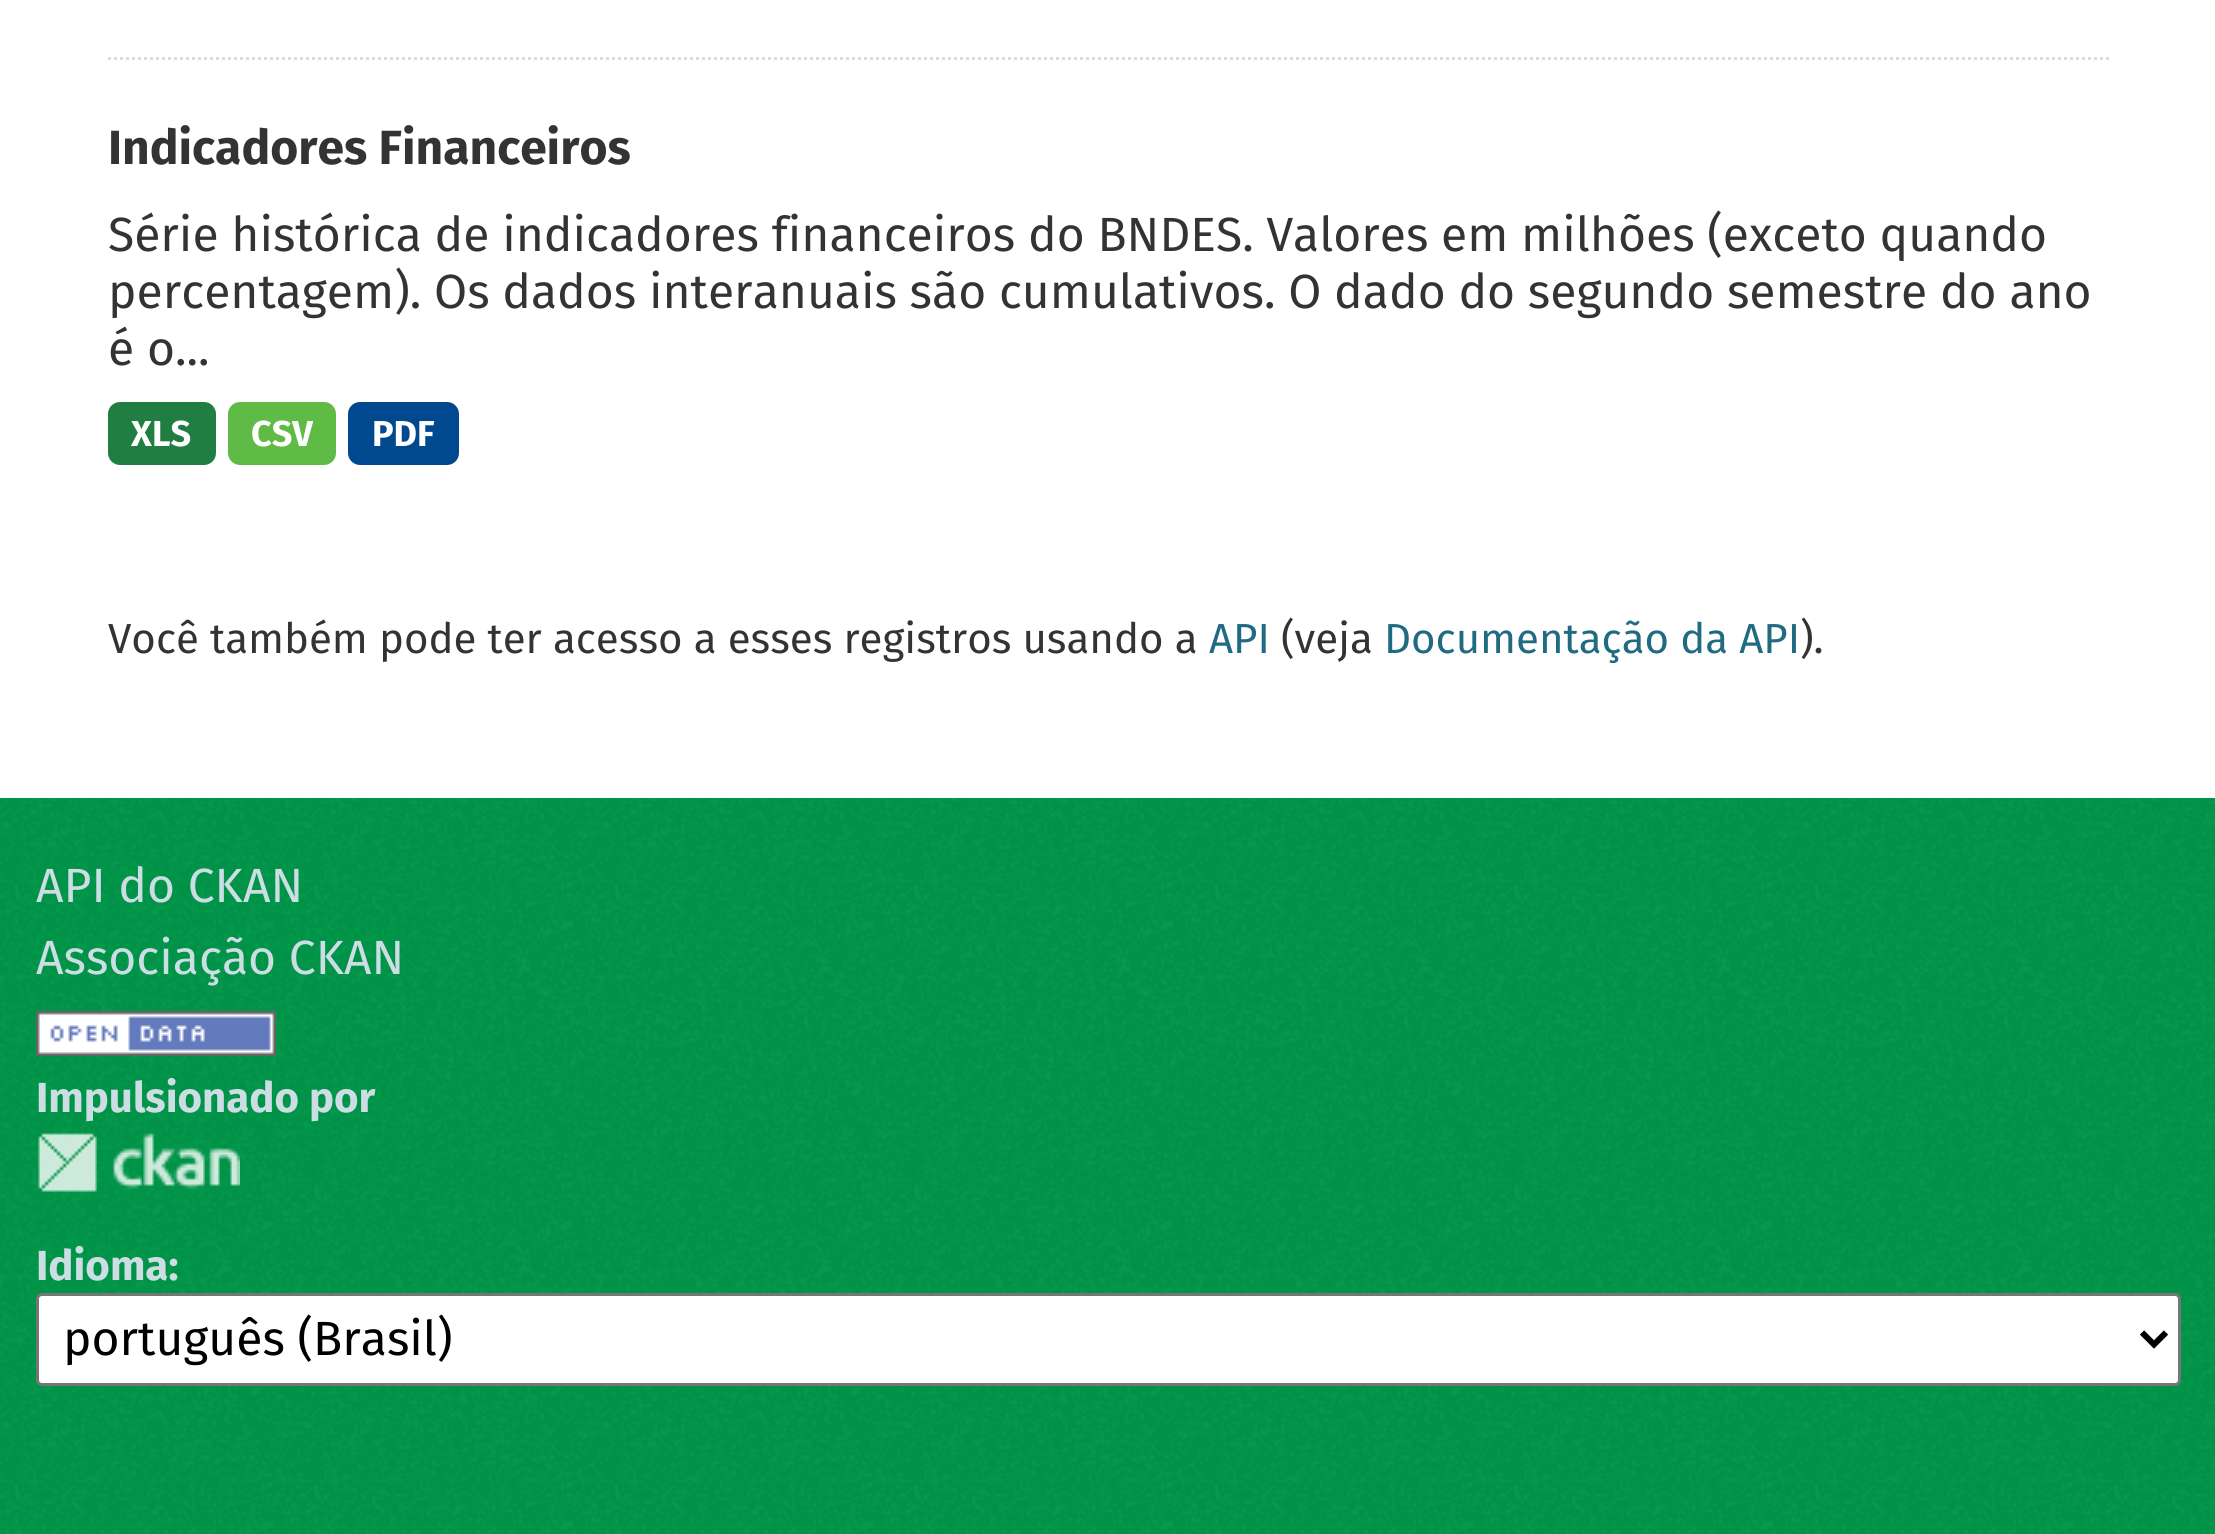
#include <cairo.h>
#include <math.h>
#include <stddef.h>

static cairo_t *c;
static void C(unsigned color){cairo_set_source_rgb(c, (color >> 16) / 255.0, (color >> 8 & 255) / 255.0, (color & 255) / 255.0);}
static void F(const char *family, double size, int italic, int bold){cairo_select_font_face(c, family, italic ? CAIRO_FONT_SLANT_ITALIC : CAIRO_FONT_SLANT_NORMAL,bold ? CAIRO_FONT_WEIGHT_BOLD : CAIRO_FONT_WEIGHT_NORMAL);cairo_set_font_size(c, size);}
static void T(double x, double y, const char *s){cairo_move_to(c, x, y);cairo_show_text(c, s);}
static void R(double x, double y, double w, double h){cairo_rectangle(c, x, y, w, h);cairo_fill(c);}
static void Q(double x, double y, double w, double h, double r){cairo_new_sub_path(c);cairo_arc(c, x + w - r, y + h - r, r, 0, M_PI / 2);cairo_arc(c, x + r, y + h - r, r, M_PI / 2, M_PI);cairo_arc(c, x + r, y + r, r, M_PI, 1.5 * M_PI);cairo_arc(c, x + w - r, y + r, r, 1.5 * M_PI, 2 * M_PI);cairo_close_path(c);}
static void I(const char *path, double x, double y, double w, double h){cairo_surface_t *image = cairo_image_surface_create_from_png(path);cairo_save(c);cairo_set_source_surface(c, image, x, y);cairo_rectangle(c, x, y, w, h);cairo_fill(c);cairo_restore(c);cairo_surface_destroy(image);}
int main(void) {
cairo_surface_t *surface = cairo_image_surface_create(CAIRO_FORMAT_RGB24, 2215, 1534);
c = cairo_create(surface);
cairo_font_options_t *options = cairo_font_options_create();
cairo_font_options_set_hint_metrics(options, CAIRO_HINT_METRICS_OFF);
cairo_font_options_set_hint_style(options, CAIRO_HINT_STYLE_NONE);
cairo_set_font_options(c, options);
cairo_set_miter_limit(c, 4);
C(0xffffff);
cairo_paint(c);
cairo_new_path(c);
cairo_move_to(c,108,58.5);
cairo_line_to(c,2109,58.5);
C(0xdddddd);
cairo_set_line_width(c,3);
cairo_set_dash(c,(double[]){3,3},2,0);
cairo_stroke(c);
F("Fira Sans",48,0,1);
C(0x333333);
T(108,164,"Indicadores Financeiros");
F("Fira Sans",48,0,0);
T(108,251,"Série histórica de indicadores financeiros do BNDES. Valores em milhões (exceto quando");
T(108,308,"percentagem). Os dados interanuais são cumulativos. O dado do segundo semestre do ano");
T(108,365,"é o...");
C(0x207e42);
Q(108,402,108,63,12);
cairo_fill(c);
F("Fira Sans",36,0,1);
C(0xffffff);
T(131,446,"XLS");
C(0x60bb46);
Q(228,402,108,63,12);
cairo_fill(c);
C(0xffffff);
T(251,446,"CSV");
C(0x01498f);
Q(348,402,111,63,12);
cairo_fill(c);
C(0xffffff);
T(372,446,"PDF");
F("Fira Sans",42,0,0);
C(0x333333);
T(108,653,"Você também pode ter acesso a esses registros usando a");
C(0x206b82);
T(1209,653,"API");
C(0x333333);
T(1281,653,"(veja");
C(0x206b82);
T(1384,653,"Documentação da API");
C(0x333333);
T(1800,653,").");
C(0x00984a);
R(0,798,2215,736);
I("1.png",0,798,2215,736);
F("Fira Sans",48,0,0);
C(0xccdee3);
T(36,902,"API do CKAN");
T(36,974,"Associação CKAN");
I("2.png",36,1011,240,45);
F("Fira Sans",42,0,1);
T(36,1112,"Impulsionado por");
I("3.png",38,1133,202,59);
T(36,1280,"Idioma:");
C(0xffffff);
Q(37.5,1294.5,2142,90,4.5);
cairo_fill_preserve(c);
C(0x767676);
cairo_set_dash(c,NULL,0,0);
cairo_stroke(c);
cairo_new_path(c);
cairo_move_to(c,2142,1332.5);
cairo_line_to(c,2154,1344.5);
cairo_line_to(c,2166,1332.5);
C(0x000000);
cairo_set_line_width(c,6);
cairo_stroke(c);
F("Fira Sans",48,0,0);
T(63,1355,"português (Brasil)");
cairo_surface_write_to_png(surface, "o.png");
cairo_font_options_destroy(options);
cairo_destroy(c);
cairo_surface_destroy(surface);
return 0;
}
